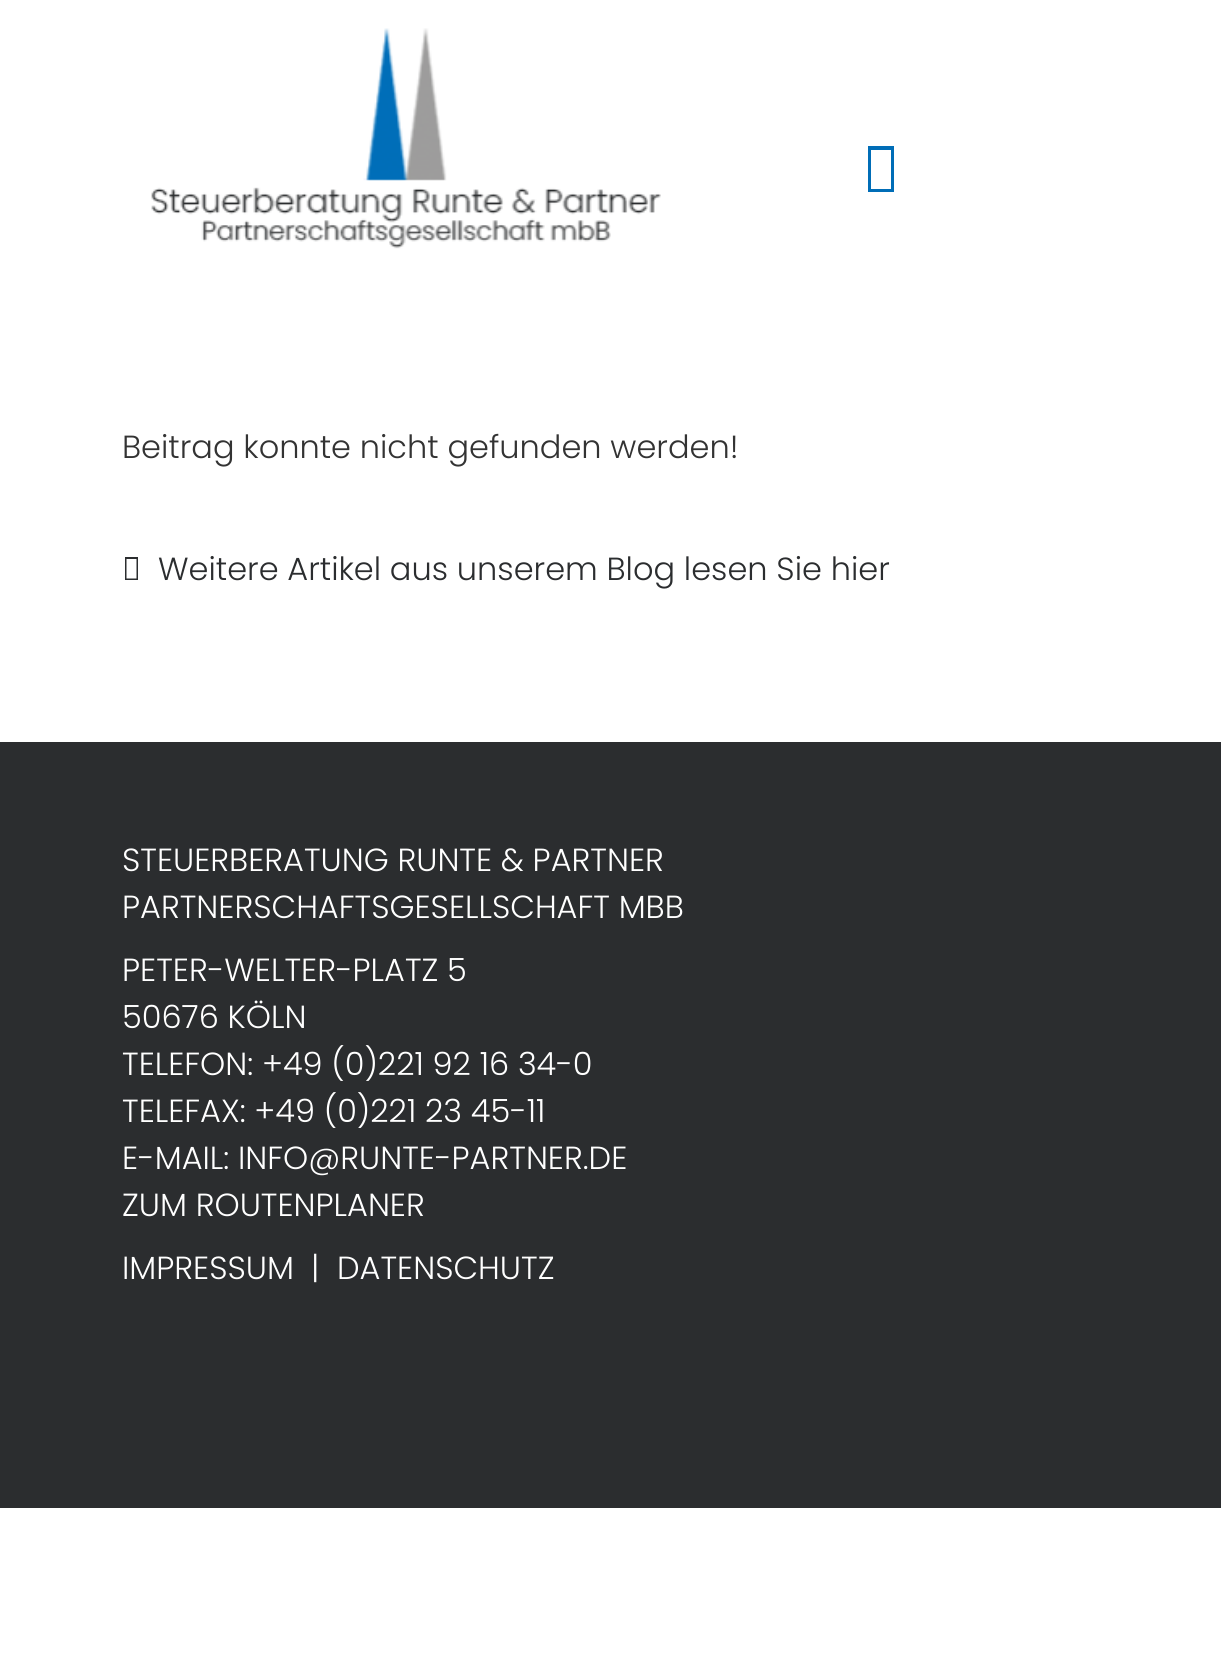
#include <cairo.h>
#include <math.h>
#include <stddef.h>

static cairo_t *c;
static void C(unsigned color){cairo_set_source_rgb(c, (color >> 16) / 255.0, (color >> 8 & 255) / 255.0, (color & 255) / 255.0);}
static void F(const char *family, double size, int italic, int bold){cairo_select_font_face(c, family, italic ? CAIRO_FONT_SLANT_ITALIC : CAIRO_FONT_SLANT_NORMAL,bold ? CAIRO_FONT_WEIGHT_BOLD : CAIRO_FONT_WEIGHT_NORMAL);cairo_set_font_size(c, size);}
static void T(double x, double y, const char *s){cairo_move_to(c, x, y);cairo_show_text(c, s);}
static void R(double x, double y, double w, double h){cairo_rectangle(c, x, y, w, h);cairo_fill(c);}
static void I(const char *path, double x, double y, double w, double h){cairo_surface_t *image = cairo_image_surface_create_from_png(path);cairo_save(c);cairo_set_source_surface(c, image, x, y);cairo_rectangle(c, x, y, w, h);cairo_fill(c);cairo_restore(c);cairo_surface_destroy(image);}
int main(void) {
cairo_surface_t *surface = cairo_image_surface_create(CAIRO_FORMAT_RGB24, 1221, 1678);
c = cairo_create(surface);
cairo_font_options_t *options = cairo_font_options_create();
cairo_font_options_set_hint_metrics(options, CAIRO_HINT_METRICS_OFF);
cairo_font_options_set_hint_style(options, CAIRO_HINT_STYLE_NONE);
cairo_set_font_options(c, options);
cairo_set_miter_limit(c, 4);
C(0xffffff);
cairo_paint(c);
I("1.png",151,28,510,221);
C(0x006db7);
cairo_new_path(c);
cairo_move_to(c,868,192);
cairo_line_to(c,868,146);
cairo_line_to(c,894,146);
cairo_line_to(c,894,192);
cairo_close_path(c);
cairo_move_to(c,871,189);
cairo_line_to(c,891,189);
cairo_line_to(c,891,150);
cairo_line_to(c,871,150);
cairo_close_path(c);
cairo_fill(c);
F("Poppins Light",32,0,0);
C(0x333333);
T(122,458,"Beitrag konnte nicht gefunden werden!");
C(0x2b2d2f);
cairo_new_path(c);
cairo_move_to(c,125,580);
cairo_line_to(c,125,557);
cairo_line_to(c,138,557);
cairo_line_to(c,138,580);
cairo_close_path(c);
cairo_move_to(c,126.5,578.5);
cairo_line_to(c,136.5,578.5);
cairo_line_to(c,136.5,559);
cairo_line_to(c,126.5,559);
cairo_close_path(c);
cairo_fill(c);
T(158,580,"Weitere Artikel aus unserem Blog lesen Sie hier");
R(0,742,1221,766);
C(0xffffff);
T(122,871,"STEUERBERATUNG RUNTE & PARTNER");
T(122,918,"PARTNERSCHAFTSGESELLSCHAFT MBB");
T(122,981,"PETER-WELTER-PLATZ 5");
T(122,1028,"50676 KÖLN");
T(122,1075,"TELEFON: +49 (0)221 92 16 34-0");
T(122,1122,"TELEFAX: +49 (0)221 23 45-11");
T(122,1169,"E-MAIL: INFO@RUNTE-PARTNER.DE");
T(122,1216,"ZUM ROUTENPLANER");
T(122,1279,"IMPRESSUM");
T(311,1279,"|");
T(337,1279,"DATENSCHUTZ");
cairo_surface_write_to_png(surface, "o.png");
cairo_font_options_destroy(options);
cairo_destroy(c);
cairo_surface_destroy(surface);
return 0;
}
